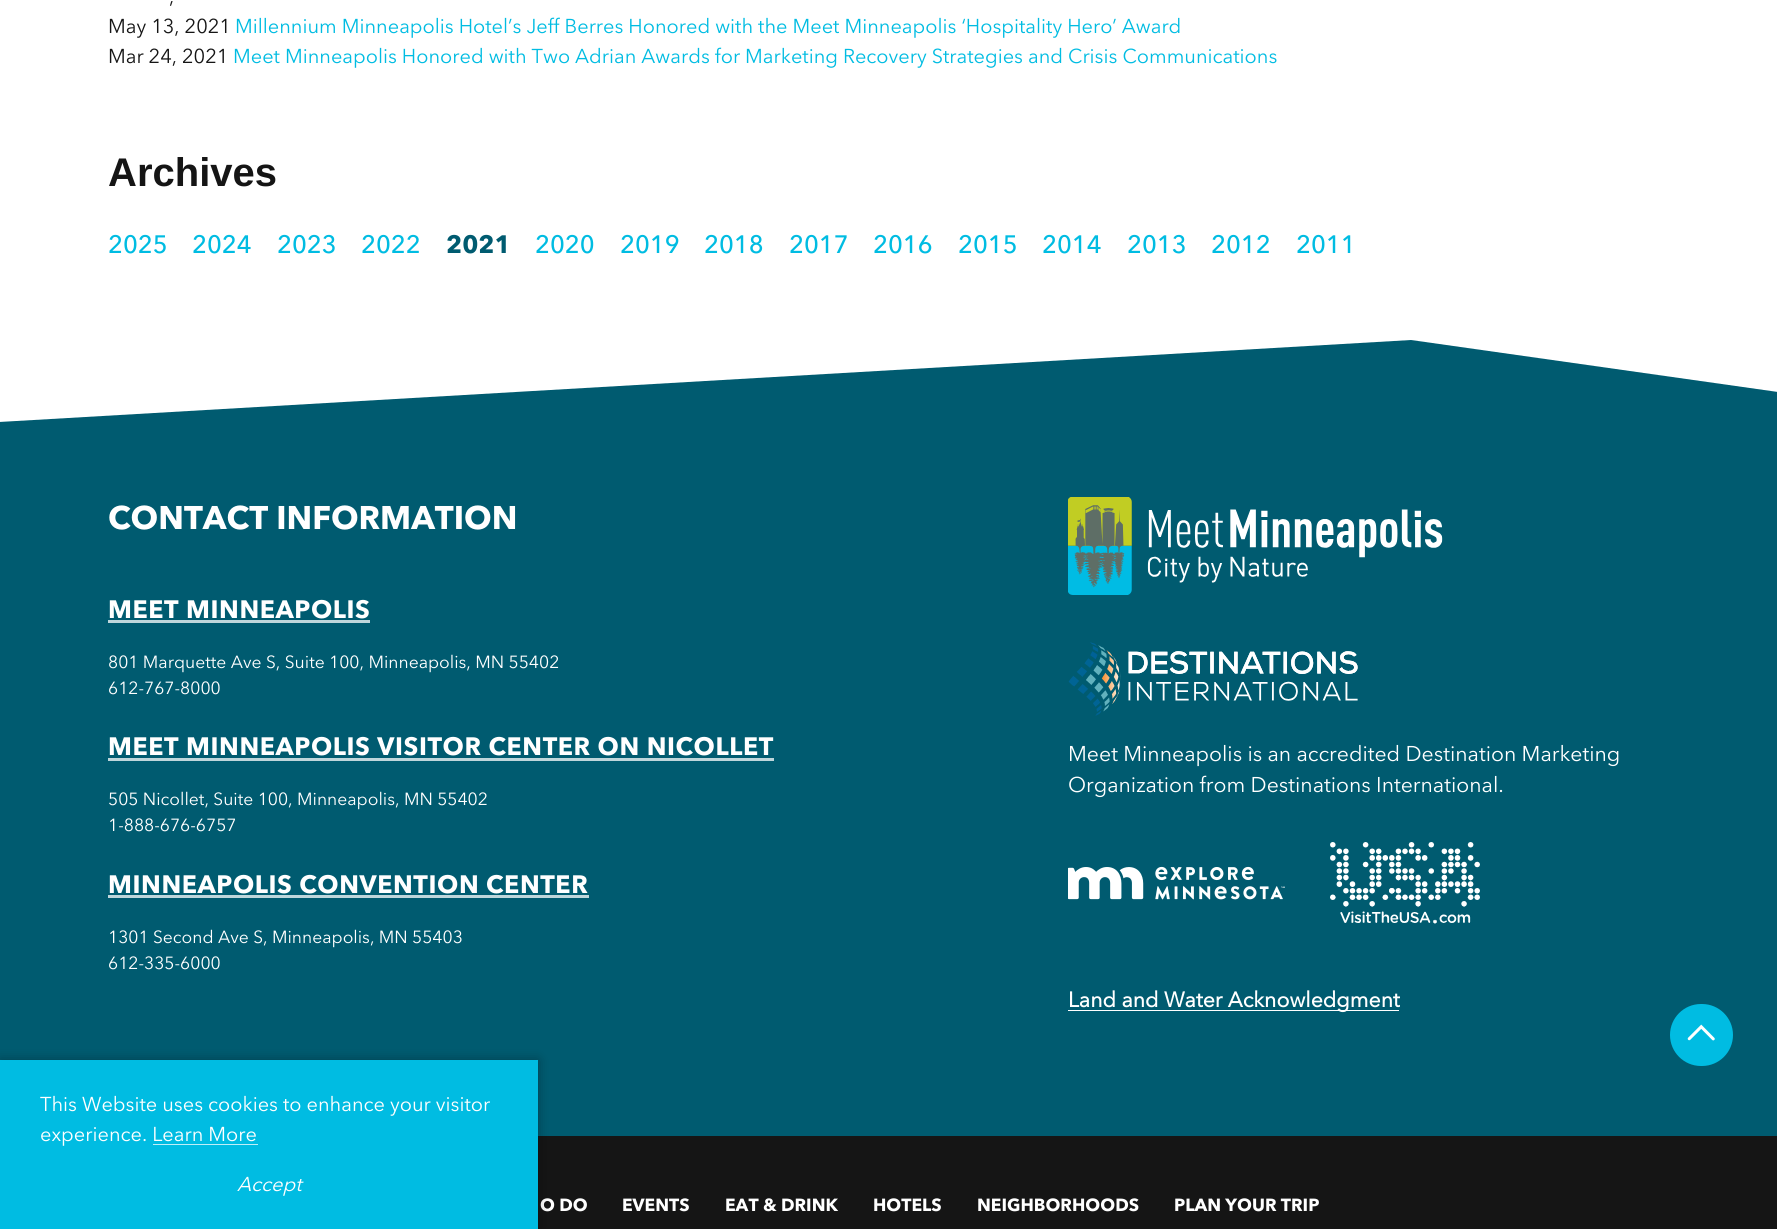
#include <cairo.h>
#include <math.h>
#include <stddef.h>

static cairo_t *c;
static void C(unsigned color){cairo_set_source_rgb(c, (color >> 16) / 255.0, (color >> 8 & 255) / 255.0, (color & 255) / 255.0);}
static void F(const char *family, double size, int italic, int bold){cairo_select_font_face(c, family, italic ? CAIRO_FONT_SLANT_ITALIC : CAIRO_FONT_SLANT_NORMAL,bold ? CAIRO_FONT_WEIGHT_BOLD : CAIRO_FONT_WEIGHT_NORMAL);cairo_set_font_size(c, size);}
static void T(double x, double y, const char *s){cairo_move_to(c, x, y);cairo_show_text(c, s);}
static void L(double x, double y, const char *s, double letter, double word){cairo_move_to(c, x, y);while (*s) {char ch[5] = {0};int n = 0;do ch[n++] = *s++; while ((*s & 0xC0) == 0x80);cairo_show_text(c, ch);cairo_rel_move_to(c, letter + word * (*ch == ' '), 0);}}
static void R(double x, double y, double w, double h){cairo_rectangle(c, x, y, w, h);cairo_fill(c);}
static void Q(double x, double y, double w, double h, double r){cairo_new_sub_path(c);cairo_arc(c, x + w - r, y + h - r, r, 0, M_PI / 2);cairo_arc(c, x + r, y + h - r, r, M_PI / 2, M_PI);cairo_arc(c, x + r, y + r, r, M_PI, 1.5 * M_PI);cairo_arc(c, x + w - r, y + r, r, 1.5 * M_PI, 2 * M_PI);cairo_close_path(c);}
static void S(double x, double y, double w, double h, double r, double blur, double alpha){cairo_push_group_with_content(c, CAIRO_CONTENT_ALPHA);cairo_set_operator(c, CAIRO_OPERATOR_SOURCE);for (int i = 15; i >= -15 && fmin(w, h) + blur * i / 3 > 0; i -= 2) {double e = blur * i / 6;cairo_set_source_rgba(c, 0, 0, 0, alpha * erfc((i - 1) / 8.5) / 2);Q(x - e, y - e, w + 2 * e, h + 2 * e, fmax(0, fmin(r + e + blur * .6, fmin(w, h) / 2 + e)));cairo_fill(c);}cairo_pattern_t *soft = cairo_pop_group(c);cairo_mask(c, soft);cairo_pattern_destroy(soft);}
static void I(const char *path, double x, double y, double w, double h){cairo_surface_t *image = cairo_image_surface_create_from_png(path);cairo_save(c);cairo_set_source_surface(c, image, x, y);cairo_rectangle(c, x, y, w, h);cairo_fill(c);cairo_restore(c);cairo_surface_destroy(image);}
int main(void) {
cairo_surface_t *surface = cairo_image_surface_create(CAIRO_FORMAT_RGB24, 1777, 1229);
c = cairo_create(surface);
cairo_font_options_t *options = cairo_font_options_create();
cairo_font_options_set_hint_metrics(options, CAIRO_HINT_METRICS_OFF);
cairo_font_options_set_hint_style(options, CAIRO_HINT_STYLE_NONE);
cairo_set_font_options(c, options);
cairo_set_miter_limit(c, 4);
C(0xffffff);
cairo_paint(c);
F("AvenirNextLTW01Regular",20,0,0);
C(0x151515);
T(169,3,",");
T(108,33,"May 13, 2021");
C(0x00bce2);
T(235,33,"Millennium Minneapolis Hotel’s Jeff Berres Honored with the Meet Minneapolis ‘Hospitality Hero’ Award");
C(0x151515);
T(108,63,"Mar 24, 2021");
C(0x00bce2);
T(233,63,"Meet Minneapolis Honored with Two Adrian Awards for Marketing Recovery Strategies and Crisis Communications");
F("Liberation Sans",40,0,1);
C(0x151515);
T(108,186,"Archives");
F("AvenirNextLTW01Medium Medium",25,0,0);
C(0x00bce2);
T(108,253,"2025");
T(192,253,"2024");
T(277,253,"2023");
T(361,253,"2022");
F("Avenir Next",25,0,1);
C(0x005b70);
T(446,253,"2021");
F("AvenirNextLTW01Medium Medium",25,0,0);
C(0x00bce2);
T(535,253,"2020");
T(620,253,"2019");
T(704,253,"2018");
T(789,253,"2017");
T(873,253,"2016");
T(958,253,"2015");
T(1042,253,"2014");
T(1127,253,"2013");
T(1211,253,"2012");
T(1296,253,"2011");
C(0x005b70);
cairo_new_path(c);
cairo_move_to(c,-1,444);
cairo_line_to(c,-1,422);
cairo_line_to(c,1411,340);
cairo_line_to(c,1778,392);
cairo_line_to(c,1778,444);
cairo_fill(c);
R(0,444,1777,692);
F("Avenir Next",32.5,0,1);
C(0xffffff);
T(108,529,"CONTACT INFORMATION");
F("Avenir Next",25,0,1);
L(108,618,"MEET MINNEAPOLIS",.6,0);
C(0xbfd6db);
R(108,620,262,3);
F("AvenirNextLTW01Regular",17.5,0,0);
C(0xffffff);
T(108,668,"801 Marquette Ave S, Suite 100, Minneapolis, MN 55402");
T(108,694,"612-767-8000");
F("Avenir Next",25,0,1);
L(108,755,"MEET MINNEAPOLIS VISITOR CENTER ON NICOLLET",.6,0);
C(0xbfd6db);
R(108,758,666,3);
F("AvenirNextLTW01Regular",17.5,0,0);
C(0xffffff);
T(108,805,"505 Nicollet, Suite 100, Minneapolis, MN 55402");
T(108,831,"1-888-676-6757");
F("Avenir Next",25,0,1);
L(108,893,"MINNEAPOLIS CONVENTION CENTER",.6,0);
C(0xbfd6db);
R(108,895,481,3);
F("AvenirNextLTW01Regular",17.5,0,0);
C(0xffffff);
T(108,943,"1301 Second Ave S, Minneapolis, MN 55403");
T(108,969,"612-335-6000");
I("1.png",1068,497,375,98);
I("2.png",1068,642,290,74);
F("AvenirNextLTW01Regular",21.25,0,0);
T(1068,761,"Meet Minneapolis is an accredited Destination Marketing");
T(1068,792,"Organization from Destinations International.");
I("3.png",1068,866,217,34);
I("4.png",1330,842,150,82);
R(1068,1010,331,1);
F("AvenirNextLTW01Regular",21.25,0,1);
T(1068,1007,"Land and Water Acknowledgment");
C(0x151515);
R(538,1136,1239,93);
F("Avenir Next",17.5,0,1);
C(0xffffff);
T(540,1211,"O DO");
T(622,1211,"EVENTS");
T(725,1211,"EAT & DRINK");
T(873,1211,"HOTELS");
T(977,1211,"NEIGHBORHOODS");
T(1174,1211,"PLAN YOUR TRIP");
C(0x00bce2);
Q(1670,1004,63,62,31);
cairo_fill(c);
I("5.png",1687,1024,28,17);
C(0x000000);
S(0,1060,538,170,0,6,.3);
C(0x00bce2);
R(0,1060,538,169);
F("AvenirNextLTW01Regular",20,0,0);
C(0xffffff);
T(40,1111,"This Website uses cookies to enhance your visitor");
T(40,1141,"experience. Learn More");
C(0xbfeef8);
R(153,1144,105,1);
F("AvenirNextLTW01Regular",20,1,0);
C(0xffffff);
T(237,1191,"Accept");
cairo_surface_write_to_png(surface, "o.png");
cairo_font_options_destroy(options);
cairo_destroy(c);
cairo_surface_destroy(surface);
return 0;
}
